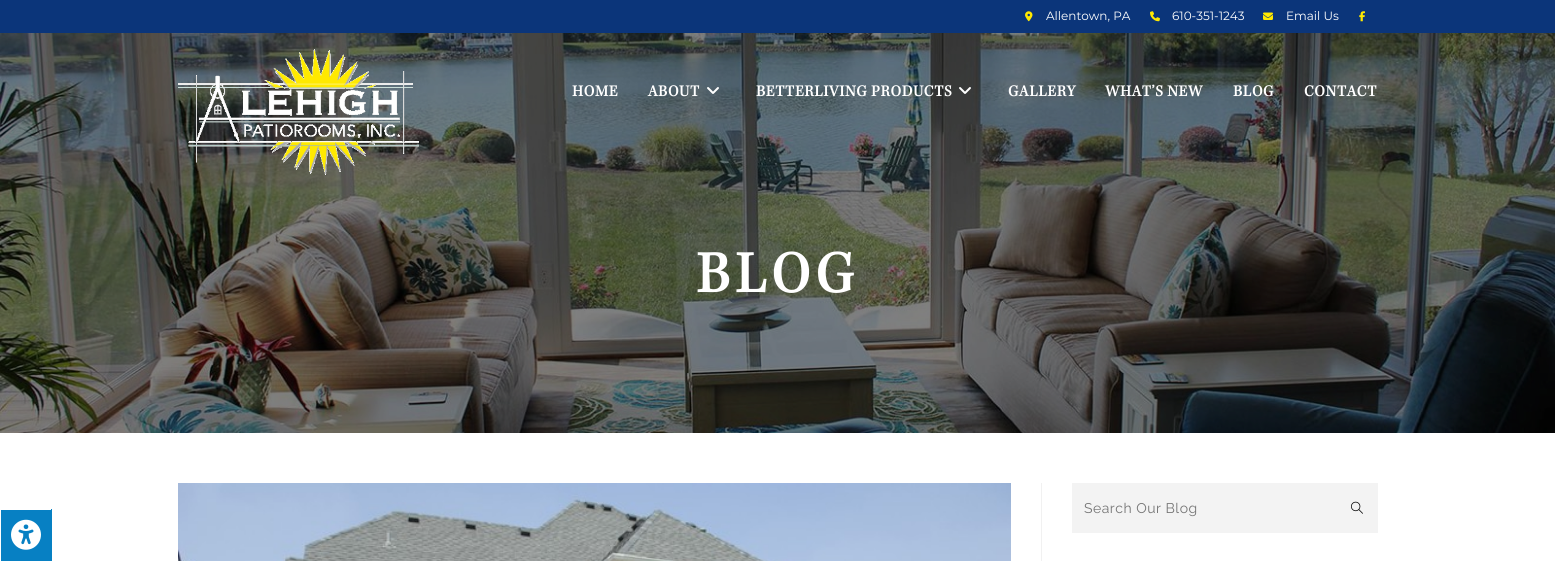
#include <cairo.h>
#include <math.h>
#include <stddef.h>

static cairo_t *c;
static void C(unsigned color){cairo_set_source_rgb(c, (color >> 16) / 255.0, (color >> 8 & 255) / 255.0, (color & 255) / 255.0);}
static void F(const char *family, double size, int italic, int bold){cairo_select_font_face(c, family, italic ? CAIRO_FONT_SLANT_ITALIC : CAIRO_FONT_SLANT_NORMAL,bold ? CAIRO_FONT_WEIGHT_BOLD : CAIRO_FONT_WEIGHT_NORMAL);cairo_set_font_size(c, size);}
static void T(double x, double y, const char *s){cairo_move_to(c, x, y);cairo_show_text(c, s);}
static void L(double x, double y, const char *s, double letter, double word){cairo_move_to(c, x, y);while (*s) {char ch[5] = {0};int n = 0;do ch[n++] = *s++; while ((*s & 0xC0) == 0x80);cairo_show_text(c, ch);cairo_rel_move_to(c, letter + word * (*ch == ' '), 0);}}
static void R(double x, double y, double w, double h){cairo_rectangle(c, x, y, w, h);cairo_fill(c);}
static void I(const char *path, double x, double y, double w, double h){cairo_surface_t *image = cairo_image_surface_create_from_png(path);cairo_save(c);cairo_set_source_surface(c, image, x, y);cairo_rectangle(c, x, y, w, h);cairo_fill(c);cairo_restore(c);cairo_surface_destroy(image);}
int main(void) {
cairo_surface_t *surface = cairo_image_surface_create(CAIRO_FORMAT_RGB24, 1555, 561);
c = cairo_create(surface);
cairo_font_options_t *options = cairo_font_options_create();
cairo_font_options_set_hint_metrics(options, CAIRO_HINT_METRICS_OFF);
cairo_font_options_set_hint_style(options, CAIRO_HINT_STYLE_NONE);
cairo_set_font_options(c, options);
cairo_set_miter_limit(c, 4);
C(0xffffff);
cairo_paint(c);
C(0x0b357a);
R(0,0,1555,33);
I("1.png",1025,11,8,11);
F("Montserrat",12,0,0);
C(0xffffff);
T(1046,20,"Allentown, PA");
I("2.png",1150,11,10,11);
T(1172,20,"610-351-1243");
I("3.png",1263,12,10,8);
T(1286,20,"Email Us");
I("4.png",1359,11,6,11);
I("8.png",0,33,1555,400);
I("5.png",178,49,241,126);
F("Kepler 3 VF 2",16,0,1);
L(572,96,"HOME",.6,0);
L(648,96,"ABOUT",.6,0);
I("6.png",707,87,12,7);
L(756,96,"BETTERLIVING PRODUCTS",.6,0);
I("7.png",959,87,12,7);
L(1008,96,"GALLERY",.6,0);
L(1105,96,"WHAT’S NEW",.6,0);
L(1233,96,"BLOG",.6,0);
L(1304,96,"CONTACT",.6,0);
F("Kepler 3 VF",60,0,1);
L(696,292,"BLOG",5,0);
C(0xf1f1f1);
R(1041,483,1,78);
I("9.png",178,483,833,78);
C(0xf3f3f3);
R(1072,483,306,50);
F("Raleway",14,0,0);
C(0x757575);
L(1084,513,"Search Our Blog",.5,0);
I("10.png",1351,501,12,13);
C(0x0780c3);
R(1,510,50,51);
R(51,509,1,52);
I("11.png",11,519,30,31);
cairo_surface_write_to_png(surface, "o.png");
cairo_font_options_destroy(options);
cairo_destroy(c);
cairo_surface_destroy(surface);
return 0;
}
